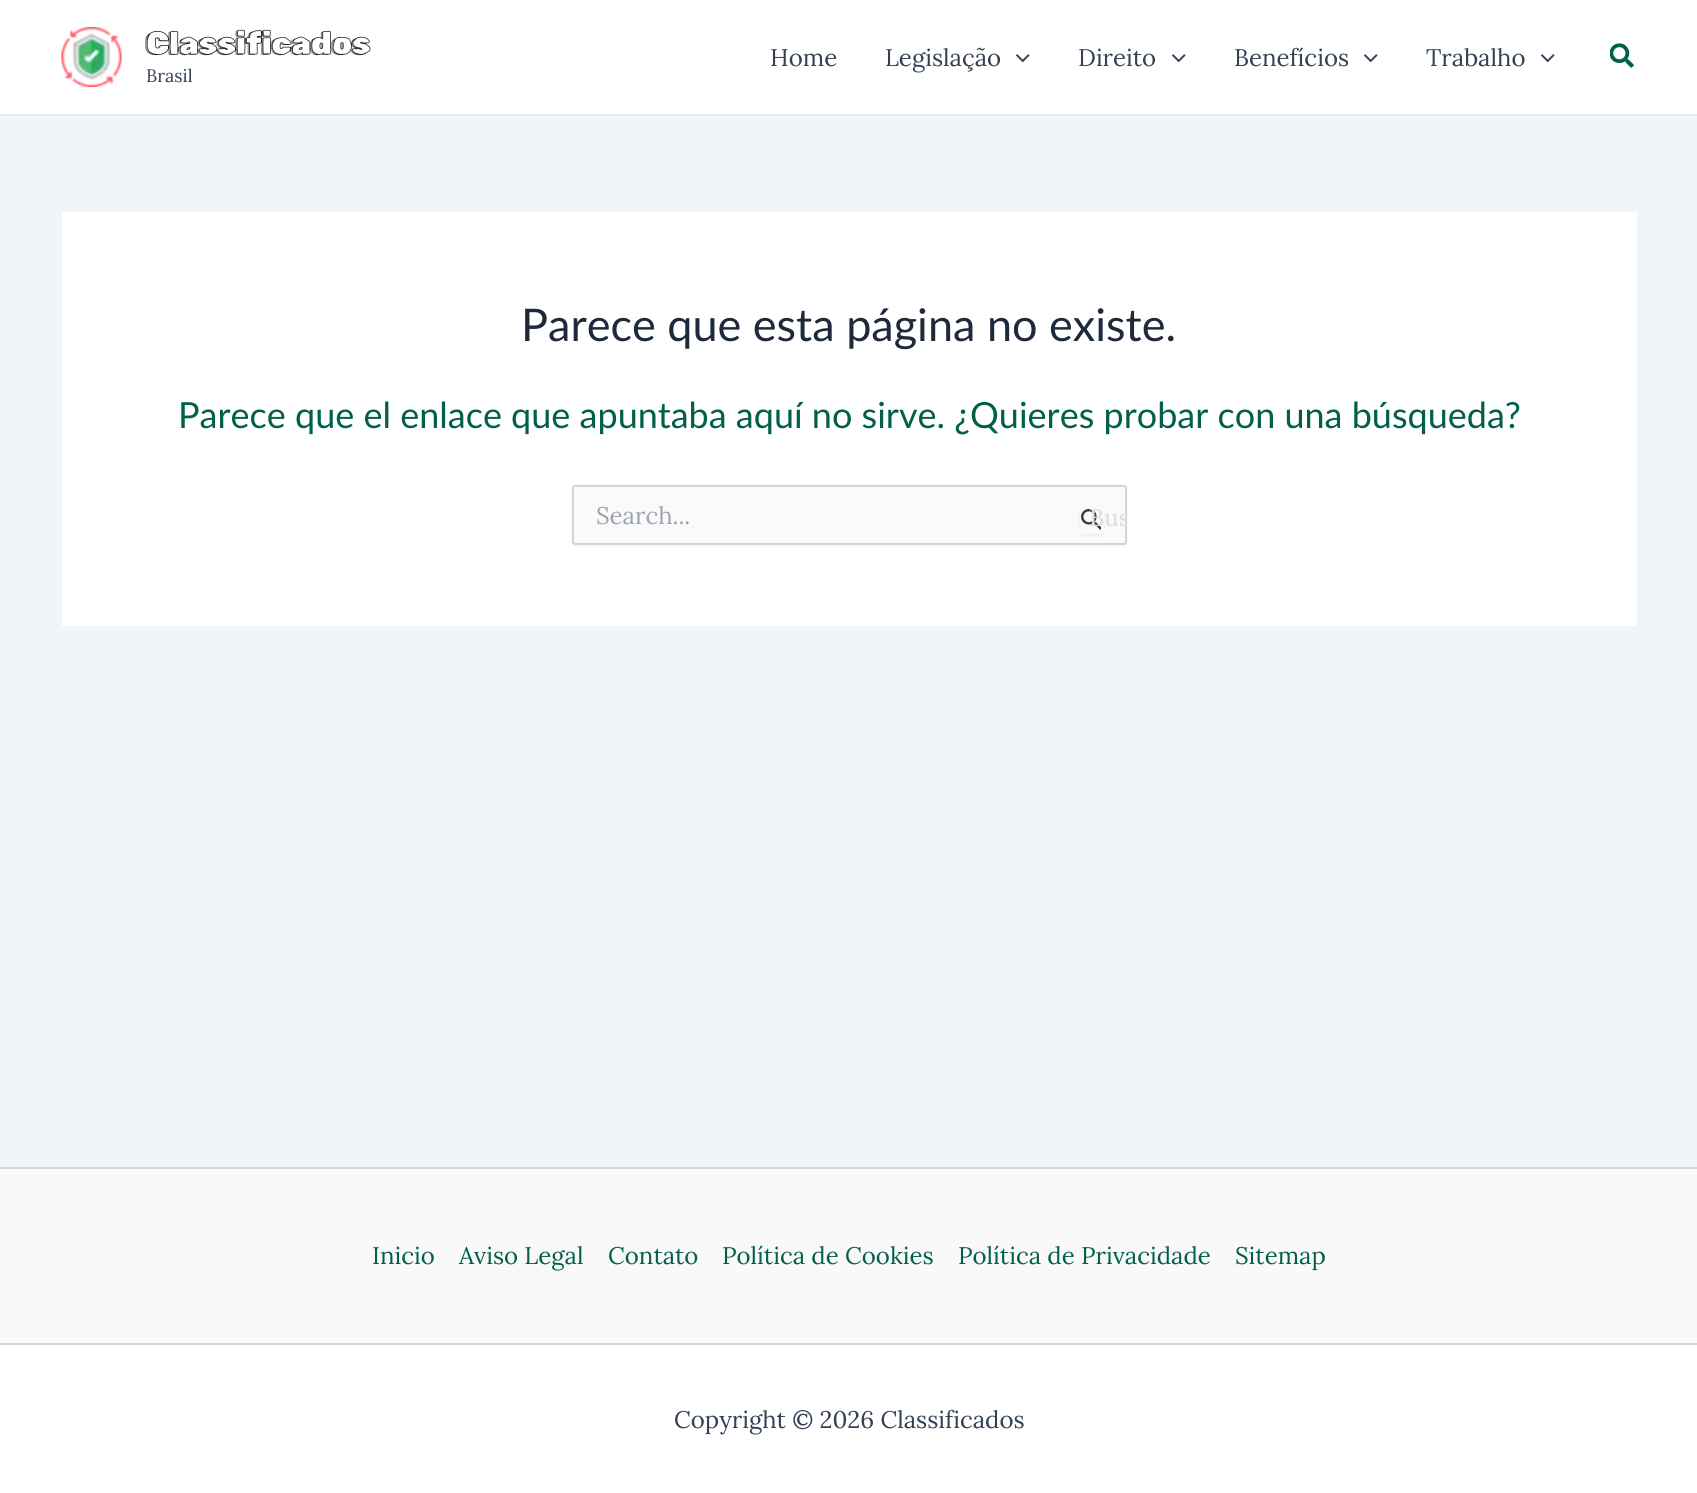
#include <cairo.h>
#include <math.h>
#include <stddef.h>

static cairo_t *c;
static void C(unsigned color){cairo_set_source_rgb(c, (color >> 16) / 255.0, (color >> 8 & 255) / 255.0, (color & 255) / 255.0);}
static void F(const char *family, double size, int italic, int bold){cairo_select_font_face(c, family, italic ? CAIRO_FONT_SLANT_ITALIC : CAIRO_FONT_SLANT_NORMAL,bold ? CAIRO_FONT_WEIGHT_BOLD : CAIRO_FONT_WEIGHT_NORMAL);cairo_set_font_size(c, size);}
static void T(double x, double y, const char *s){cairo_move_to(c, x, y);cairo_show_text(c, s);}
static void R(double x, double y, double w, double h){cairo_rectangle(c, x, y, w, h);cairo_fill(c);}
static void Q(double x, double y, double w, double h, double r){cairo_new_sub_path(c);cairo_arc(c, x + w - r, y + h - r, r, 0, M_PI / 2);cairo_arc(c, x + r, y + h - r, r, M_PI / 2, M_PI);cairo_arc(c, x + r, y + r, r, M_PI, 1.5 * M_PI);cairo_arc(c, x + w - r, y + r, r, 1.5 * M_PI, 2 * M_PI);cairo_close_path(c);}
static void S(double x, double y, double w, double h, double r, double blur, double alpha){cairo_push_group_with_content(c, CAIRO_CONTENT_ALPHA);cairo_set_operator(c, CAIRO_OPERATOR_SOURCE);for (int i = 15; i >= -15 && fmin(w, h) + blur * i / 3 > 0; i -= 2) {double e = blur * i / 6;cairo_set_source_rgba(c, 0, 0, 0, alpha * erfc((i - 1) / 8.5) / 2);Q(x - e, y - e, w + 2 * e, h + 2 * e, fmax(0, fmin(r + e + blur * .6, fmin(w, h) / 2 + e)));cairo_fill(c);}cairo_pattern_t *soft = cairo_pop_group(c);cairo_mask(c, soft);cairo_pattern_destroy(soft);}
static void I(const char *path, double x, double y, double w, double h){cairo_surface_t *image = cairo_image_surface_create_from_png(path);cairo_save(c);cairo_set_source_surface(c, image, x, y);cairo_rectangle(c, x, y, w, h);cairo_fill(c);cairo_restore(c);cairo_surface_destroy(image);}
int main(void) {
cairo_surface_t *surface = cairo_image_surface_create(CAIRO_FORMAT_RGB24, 1697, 1493);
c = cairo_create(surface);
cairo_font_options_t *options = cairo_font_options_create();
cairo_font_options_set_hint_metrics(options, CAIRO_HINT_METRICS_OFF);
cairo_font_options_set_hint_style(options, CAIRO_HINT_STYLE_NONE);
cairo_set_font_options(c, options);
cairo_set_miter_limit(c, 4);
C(0xf0f5fa);
cairo_paint(c);
C(0xffffff);
R(0,0,1697,114);
C(0xeaeaea);
R(0,114,1697,2);
I("1.png",61,27,61,60);
F("Rubik Doodle Shadow",31.5,0,0);
C(0x222222);
T(146,54,"Classificados");
F("Lora",18,0,0);
C(0x334155);
T(146,82,"Brasil");
F("Lora",24,0,0);
T(770,66,"Home");
T(885,66,"Legislação");
I("2.png",1016,54,14,9);
T(1078,66,"Direito");
I("2.png",1172,54,14,9);
T(1234,66,"Benefícios");
I("2.png",1364,54,14,9);
T(1426,66,"Trabalho");
I("2.png",1541,54,14,9);
I("3.png",1610,43,24,25);
C(0xffffff);
R(62,212,1575,414);
F("Lato",45,0,0);
C(0x1e293b);
T(521,341,"Parece que esta página no existe.");
F("Lato",36,0,0);
C(0x02604a);
T(178,428,"Parece que el enlace que apuntaba aquí no sirve. ¿Quieres probar con una búsqueda?");
C(0x000000);
S(572,486,555,60,3,1.5,.05);
C(0xfafafa);
Q(573,486,553,58,2);
cairo_fill_preserve(c);
C(0xd1d5db);
cairo_stroke(c);
F("Lora",24,0,0);
C(0x9ca3af);
T(596,524,"Search...");
cairo_save(c);
cairo_set_fill_rule(c,CAIRO_FILL_RULE_EVEN_ODD);
cairo_new_path(c);
cairo_move_to(c,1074,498);
cairo_line_to(c,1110,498);
cairo_line_to(c,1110,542);
cairo_line_to(c,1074,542);
cairo_close_path(c);
cairo_move_to(c,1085,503);
cairo_line_to(c,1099,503);
cairo_curve_to(c,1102,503,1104,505,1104,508);
cairo_line_to(c,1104,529);
cairo_curve_to(c,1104,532,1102,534,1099,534);
cairo_line_to(c,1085,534);
cairo_curve_to(c,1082,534,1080,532,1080,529);
cairo_line_to(c,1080,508);
cairo_curve_to(c,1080,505,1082,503,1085,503);
cairo_close_path(c);
cairo_clip(c);
C(0x000000);
S(1080,504,24,32,5,1.5,.05);
cairo_restore(c);
I("4.png",1081,509,20,21);
cairo_save(c);
Q(1059,485,68,63,3);
cairo_clip(c);
F("Lora Medium",24,0,0);
C(0xdfdfdf);
T(1089,526,"Bus");
cairo_restore(c);
C(0xf9f9f9);
R(0,1169,1697,174);
C(0xd1d5db);
R(0,1167,1697,2);
C(0x02604a);
T(372,1264,"Inicio");
T(459,1264,"Aviso Legal");
T(608,1264,"Contato");
T(722,1264,"Política de Cookies");
T(958,1264,"Política de Privacidade");
T(1235,1264,"Sitemap");
C(0xffffff);
R(0,1345,1697,148);
C(0xd1d5db);
R(0,1343,1697,2);
C(0x334155);
T(674,1428,"Copyright © 2026 Classificados");
cairo_surface_write_to_png(surface, "o.png");
cairo_font_options_destroy(options);
cairo_destroy(c);
cairo_surface_destroy(surface);
return 0;
}
